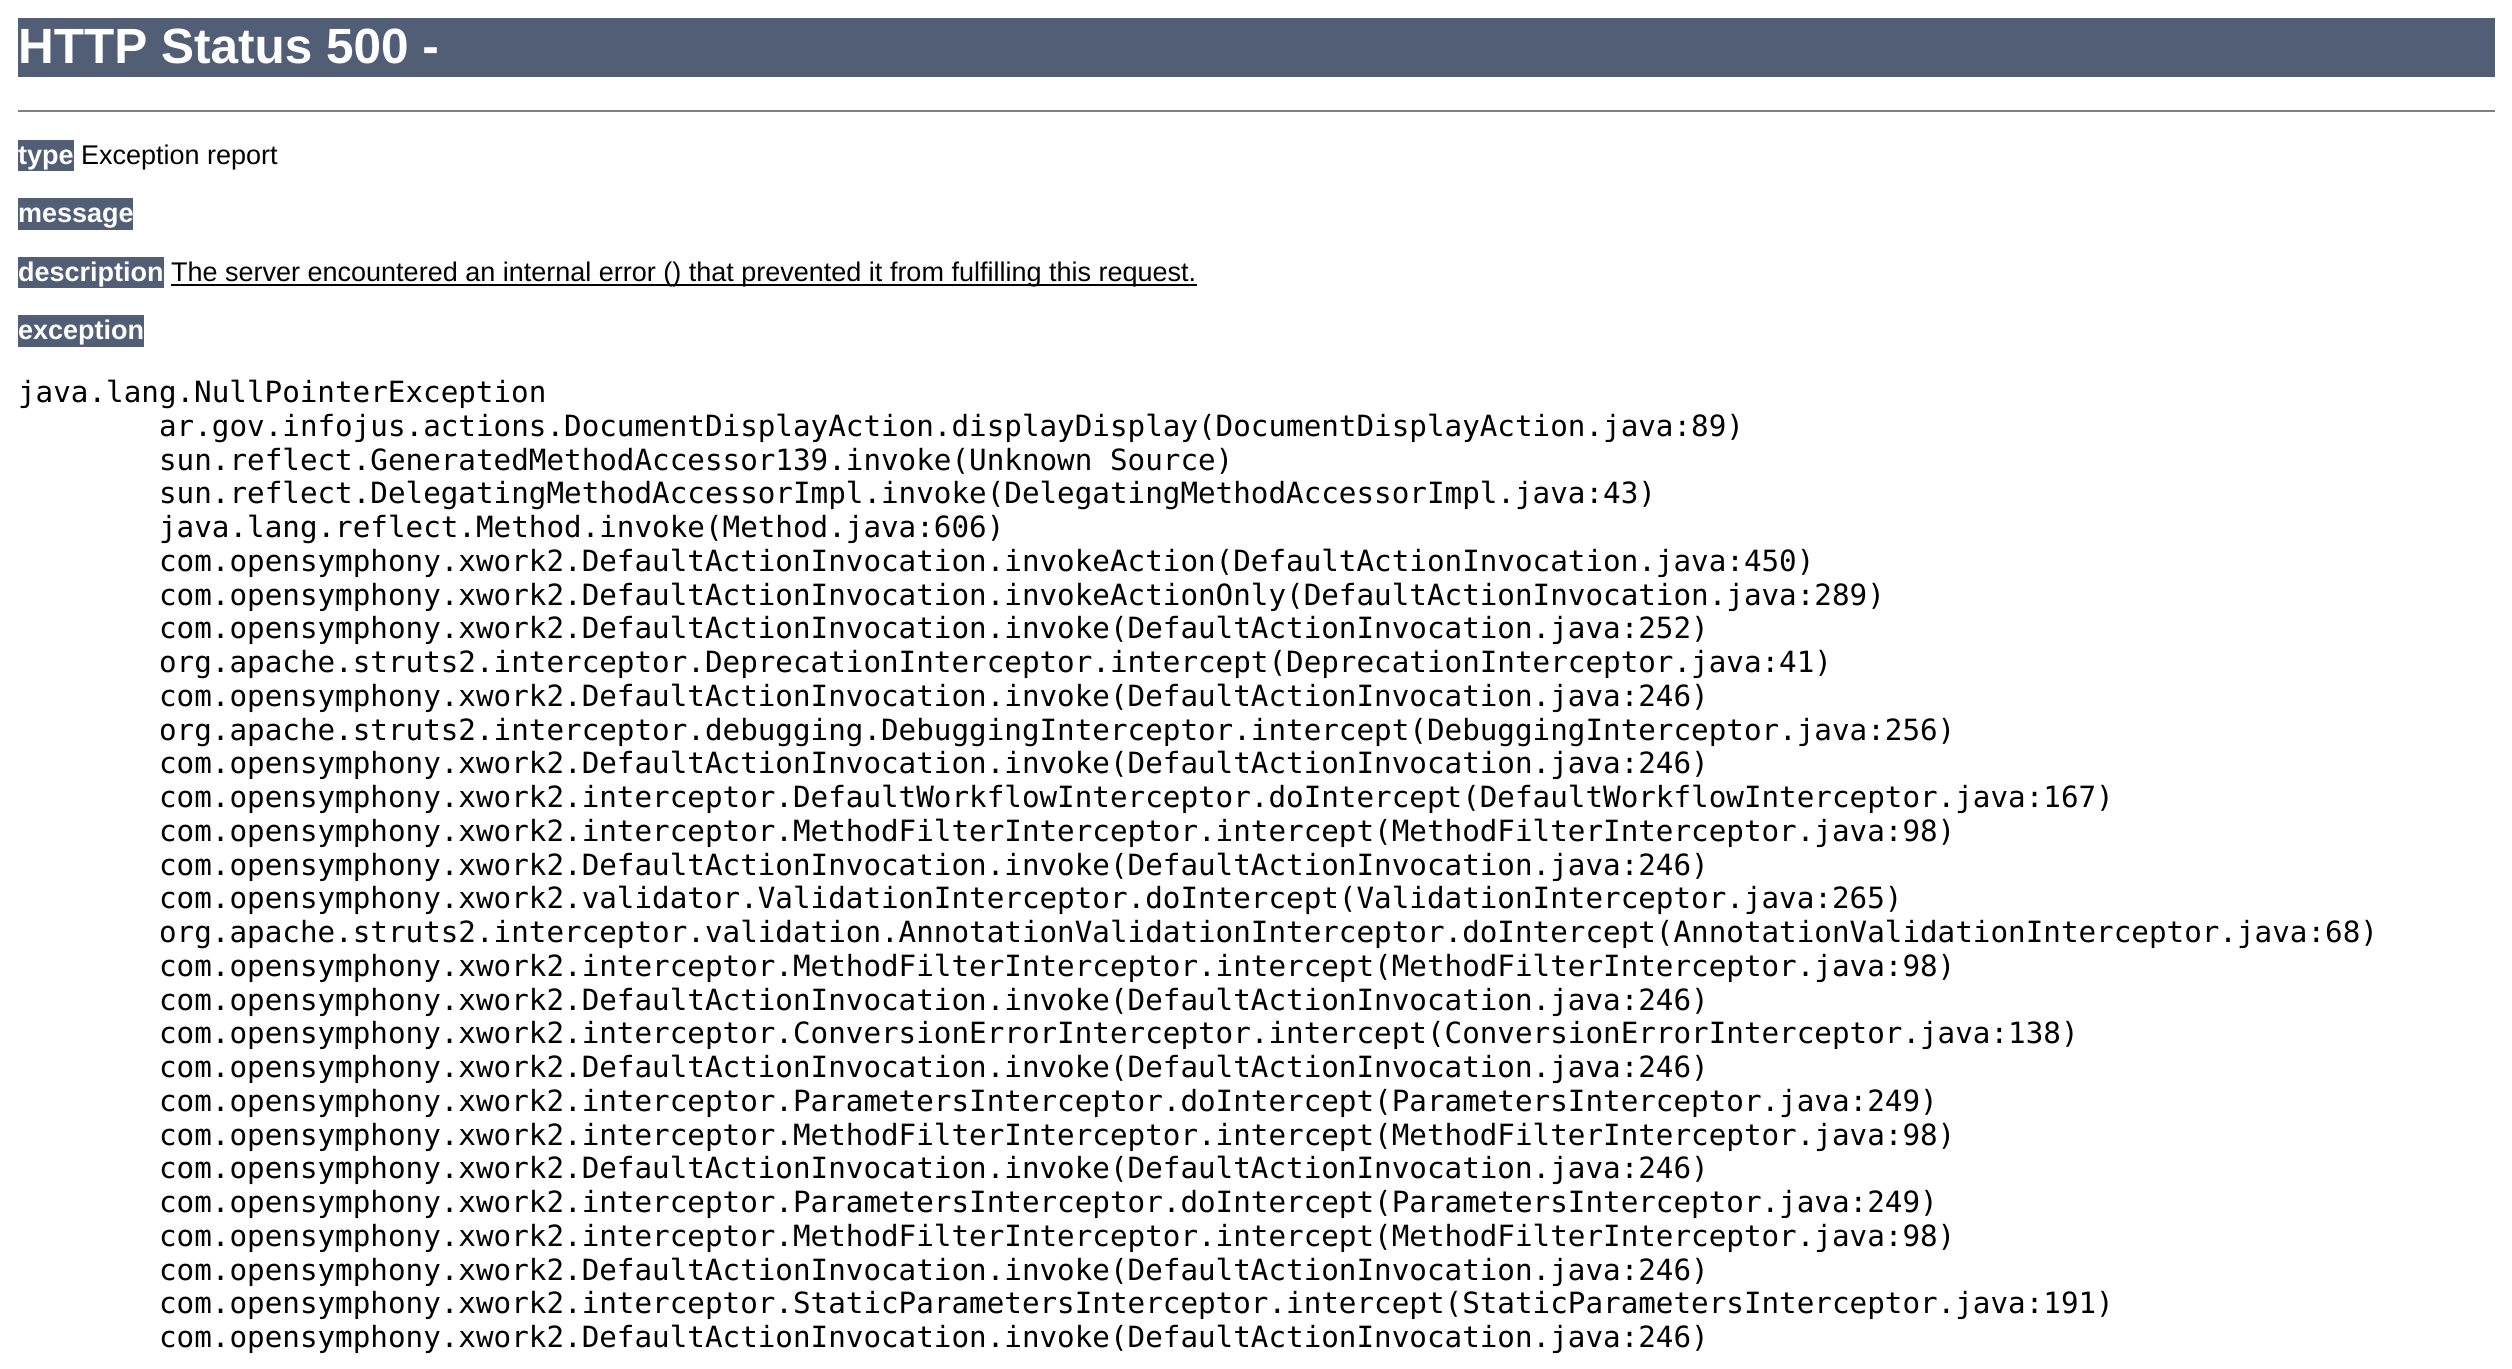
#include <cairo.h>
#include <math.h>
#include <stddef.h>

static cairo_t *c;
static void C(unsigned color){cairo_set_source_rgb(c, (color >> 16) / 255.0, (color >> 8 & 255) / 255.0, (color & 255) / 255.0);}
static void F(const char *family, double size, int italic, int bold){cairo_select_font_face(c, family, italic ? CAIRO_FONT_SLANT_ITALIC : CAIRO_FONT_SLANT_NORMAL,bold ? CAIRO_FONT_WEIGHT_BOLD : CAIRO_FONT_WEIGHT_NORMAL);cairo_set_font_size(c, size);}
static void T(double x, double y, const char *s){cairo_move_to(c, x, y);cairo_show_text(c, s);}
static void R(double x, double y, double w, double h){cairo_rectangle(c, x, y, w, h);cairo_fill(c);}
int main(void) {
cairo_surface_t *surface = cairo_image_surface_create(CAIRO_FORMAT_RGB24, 2512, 1369);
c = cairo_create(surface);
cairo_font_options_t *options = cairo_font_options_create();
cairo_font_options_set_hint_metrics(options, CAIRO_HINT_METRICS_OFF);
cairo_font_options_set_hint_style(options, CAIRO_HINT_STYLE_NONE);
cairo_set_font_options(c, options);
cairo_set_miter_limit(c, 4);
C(0xffffff);
cairo_paint(c);
C(0x525d76);
R(18,18,2477,59);
F("Liberation Sans",49.5,0,1);
C(0xffffff);
T(18,63,"HTTP Status 500 -");
C(0x808080);
R(18,110,2477,2);
C(0x525d76);
R(18,140,56,31);
F("Liberation Sans",27,0,1);
C(0xffffff);
T(18,164,"type");
F("Liberation Sans",27,0,0);
C(0x000000);
T(81,164,"Exception report");
C(0x525d76);
R(18,198,115,32);
F("Liberation Sans",27,0,1);
C(0xffffff);
T(18,222,"message");
C(0x525d76);
R(18,257,146,31);
C(0xffffff);
T(18,281,"description");
C(0x000000);
R(171,284,1026,2);
F("Liberation Sans",27,0,0);
T(171,281,"The server encountered an internal error () that prevented it from fulfilling this request.");
C(0x525d76);
R(18,315,126,32);
F("Liberation Sans",27,0,1);
C(0xffffff);
T(18,339,"exception");
F("DejaVu Sans Mono",29.25,0,0);
C(0x000000);
T(18,402,"java.lang.NullPointerException");
T(159,436,"ar.gov.infojus.actions.DocumentDisplayAction.displayDisplay(DocumentDisplayAction.java:89)");
T(159,470,"sun.reflect.GeneratedMethodAccessor139.invoke(Unknown Source)");
T(159,503,"sun.reflect.DelegatingMethodAccessorImpl.invoke(DelegatingMethodAccessorImpl.java:43)");
T(159,537,"java.lang.reflect.Method.invoke(Method.java:606)");
T(159,571,"com.opensymphony.xwork2.DefaultActionInvocation.invokeAction(DefaultActionInvocation.java:450)");
T(159,605,"com.opensymphony.xwork2.DefaultActionInvocation.invokeActionOnly(DefaultActionInvocation.java:289)");
T(159,638,"com.opensymphony.xwork2.DefaultActionInvocation.invoke(DefaultActionInvocation.java:252)");
T(159,672,"org.apache.struts2.interceptor.DeprecationInterceptor.intercept(DeprecationInterceptor.java:41)");
T(159,706,"com.opensymphony.xwork2.DefaultActionInvocation.invoke(DefaultActionInvocation.java:246)");
T(159,740,"org.apache.struts2.interceptor.debugging.DebuggingInterceptor.intercept(DebuggingInterceptor.java:256)");
T(159,773,"com.opensymphony.xwork2.DefaultActionInvocation.invoke(DefaultActionInvocation.java:246)");
T(159,807,"com.opensymphony.xwork2.interceptor.DefaultWorkflowInterceptor.doIntercept(DefaultWorkflowInterceptor.java:167)");
T(159,841,"com.opensymphony.xwork2.interceptor.MethodFilterInterceptor.intercept(MethodFilterInterceptor.java:98)");
T(159,875,"com.opensymphony.xwork2.DefaultActionInvocation.invoke(DefaultActionInvocation.java:246)");
T(159,908,"com.opensymphony.xwork2.validator.ValidationInterceptor.doIntercept(ValidationInterceptor.java:265)");
T(159,942,"org.apache.struts2.interceptor.validation.AnnotationValidationInterceptor.doIntercept(AnnotationValidationInterceptor.java:68)");
T(159,976,"com.opensymphony.xwork2.interceptor.MethodFilterInterceptor.intercept(MethodFilterInterceptor.java:98)");
T(159,1010,"com.opensymphony.xwork2.DefaultActionInvocation.invoke(DefaultActionInvocation.java:246)");
T(159,1043,"com.opensymphony.xwork2.interceptor.ConversionErrorInterceptor.intercept(ConversionErrorInterceptor.java:138)");
T(159,1077,"com.opensymphony.xwork2.DefaultActionInvocation.invoke(DefaultActionInvocation.java:246)");
T(159,1111,"com.opensymphony.xwork2.interceptor.ParametersInterceptor.doIntercept(ParametersInterceptor.java:249)");
T(159,1145,"com.opensymphony.xwork2.interceptor.MethodFilterInterceptor.intercept(MethodFilterInterceptor.java:98)");
T(159,1178,"com.opensymphony.xwork2.DefaultActionInvocation.invoke(DefaultActionInvocation.java:246)");
T(159,1212,"com.opensymphony.xwork2.interceptor.ParametersInterceptor.doIntercept(ParametersInterceptor.java:249)");
T(159,1246,"com.opensymphony.xwork2.interceptor.MethodFilterInterceptor.intercept(MethodFilterInterceptor.java:98)");
T(159,1280,"com.opensymphony.xwork2.DefaultActionInvocation.invoke(DefaultActionInvocation.java:246)");
T(159,1313,"com.opensymphony.xwork2.interceptor.StaticParametersInterceptor.intercept(StaticParametersInterceptor.java:191)");
T(159,1347,"com.opensymphony.xwork2.DefaultActionInvocation.invoke(DefaultActionInvocation.java:246)");
cairo_surface_write_to_png(surface, "o.png");
cairo_font_options_destroy(options);
cairo_destroy(c);
cairo_surface_destroy(surface);
return 0;
}
